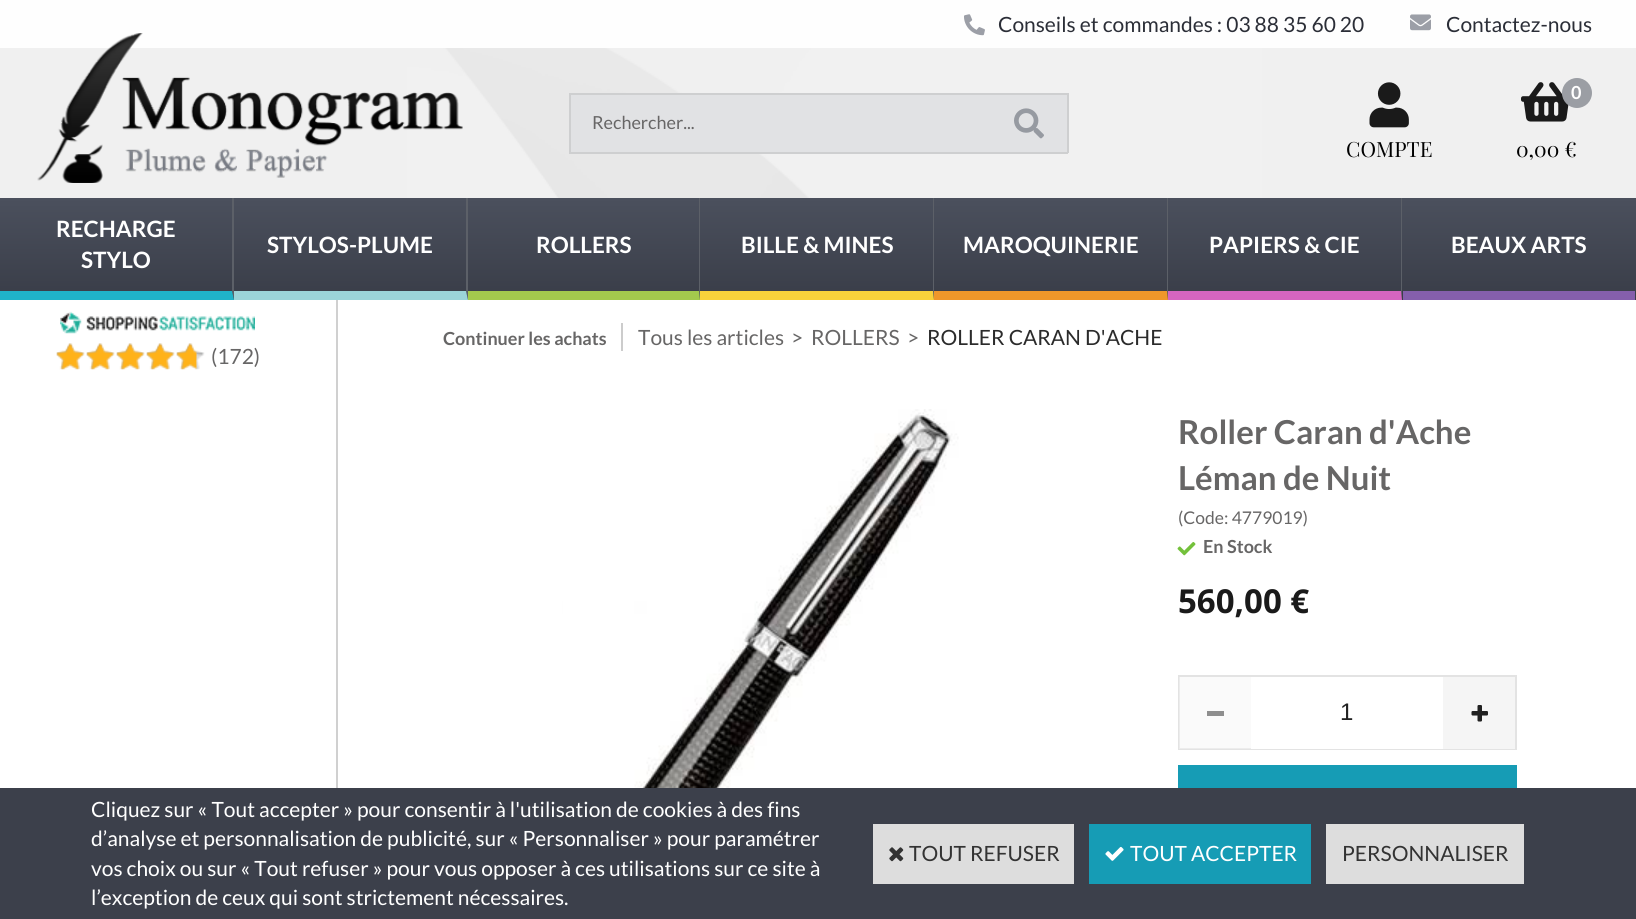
#include <cairo.h>
#include <math.h>
#include <stddef.h>

static cairo_t *c;
static void C(unsigned color){cairo_set_source_rgb(c, (color >> 16) / 255.0, (color >> 8 & 255) / 255.0, (color & 255) / 255.0);}
static void F(const char *family, double size, int italic, int bold){cairo_select_font_face(c, family, italic ? CAIRO_FONT_SLANT_ITALIC : CAIRO_FONT_SLANT_NORMAL,bold ? CAIRO_FONT_WEIGHT_BOLD : CAIRO_FONT_WEIGHT_NORMAL);cairo_set_font_size(c, size);}
static void T(double x, double y, const char *s){cairo_move_to(c, x, y);cairo_show_text(c, s);}
static void R(double x, double y, double w, double h){cairo_rectangle(c, x, y, w, h);cairo_fill(c);}
static void I(const char *path, double x, double y, double w, double h){cairo_surface_t *image = cairo_image_surface_create_from_png(path);cairo_save(c);cairo_set_source_surface(c, image, x, y);cairo_rectangle(c, x, y, w, h);cairo_fill(c);cairo_restore(c);cairo_surface_destroy(image);}
int main(void) {
cairo_surface_t *surface = cairo_image_surface_create(CAIRO_FORMAT_RGB24, 1636, 919);
c = cairo_create(surface);
cairo_font_options_t *options = cairo_font_options_create();
cairo_font_options_set_hint_metrics(options, CAIRO_HINT_METRICS_OFF);
cairo_font_options_set_hint_style(options, CAIRO_HINT_STYLE_NONE);
cairo_set_font_options(c, options);
cairo_set_miter_limit(c, 4);
cairo_pattern_t *gradient;
C(0xf0f0f0);
cairo_paint(c);
I("1.png",407,48,855,150);
C(0xfefefe);
R(0,0,1636,48);
I("2.png",964,14,21,22);
F("Lato",21,0,0);
C(0x2b2e37);
T(998,32,"Conseils et commandes : 03 88 35 60 20");
I("3.png",1410,14,21,17);
T(1446,32,"Contactez-nous");
I("4.png",37,33,426,150);
C(0xe1e2e4);
R(571,95,496,57);
C(0xcecfd0);
R(569,93,499,2);
R(569,152,423,2);
R(569,93,2,60);
F("Lato",18,0,0);
C(0x676666);
T(592,129,"Rechercher...");
C(0xcecfd0);
R(1067,93,2,60);
R(992,152,76,2);
I("5.png",1014,108,30,31);
I("6.png",1369,82,40,46);
F("Playfair Display",21,0,0);
C(0x000000);
T(1346,157,"COMPTE");
I("7.png",1521,82,48,40);
C(0x9b9ea4);
cairo_arc(c,1577,93,15,0,2 * M_PI);
cairo_fill(c);
F("Lato",18,0,1);
C(0xffffff);
T(1571,99,"0");
F("Playfair Display",21,0,0);
C(0x000000);
T(1516,157,"0,00 €");
gradient = cairo_pattern_create_linear(818,198,818,300);
cairo_pattern_add_color_stop_rgba(gradient,0,0.294,0.314,0.365,1);
cairo_pattern_add_color_stop_rgba(gradient,1,0.224,0.239,0.282,1);
cairo_set_source(c,gradient);
cairo_pattern_destroy(gradient);
R(0,198,1636,102);
C(0x5c6068);
cairo_new_path(c);
cairo_move_to(c,234,198);
cairo_line_to(c,234,300);
cairo_line_to(c,232,291);
cairo_line_to(c,232,198);
cairo_close_path(c);
cairo_fill(c);
C(0x1fb3c9);
cairo_new_path(c);
cairo_move_to(c,234,300);
cairo_line_to(c,0,300);
cairo_line_to(c,0,291);
cairo_line_to(c,232,291);
cairo_close_path(c);
cairo_fill(c);
F("Lato",22.5,0,1);
C(0xffffff);
T(56,237,"RECHARGE");
T(81,268,"STYLO");
C(0x5c6068);
cairo_new_path(c);
cairo_move_to(c,468,198);
cairo_line_to(c,468,300);
cairo_line_to(c,466,291);
cairo_line_to(c,466,198);
cairo_close_path(c);
cairo_fill(c);
C(0x9bd4d9);
cairo_new_path(c);
cairo_move_to(c,468,300);
cairo_line_to(c,234,300);
cairo_line_to(c,234,291);
cairo_line_to(c,466,291);
cairo_close_path(c);
cairo_fill(c);
C(0xffffff);
T(267,253,"STYLOS-PLUME");
C(0x5c6068);
cairo_new_path(c);
cairo_move_to(c,700,198);
cairo_line_to(c,700,300);
cairo_line_to(c,699,291);
cairo_line_to(c,699,198);
cairo_close_path(c);
cairo_fill(c);
C(0xa3c94d);
cairo_new_path(c);
cairo_move_to(c,700,300);
cairo_line_to(c,468,300);
cairo_line_to(c,468,291);
cairo_line_to(c,699,291);
cairo_close_path(c);
cairo_fill(c);
C(0xffffff);
T(536,253,"ROLLERS");
C(0x5c6068);
cairo_new_path(c);
cairo_move_to(c,934,198);
cairo_line_to(c,934,300);
cairo_line_to(c,933,291);
cairo_line_to(c,933,198);
cairo_close_path(c);
cairo_fill(c);
C(0xf8d23b);
cairo_new_path(c);
cairo_move_to(c,934,300);
cairo_line_to(c,700,300);
cairo_line_to(c,700,291);
cairo_line_to(c,933,291);
cairo_close_path(c);
cairo_fill(c);
C(0xffffff);
T(741,253,"BILLE & MINES");
C(0x5c6068);
cairo_new_path(c);
cairo_move_to(c,1168,198);
cairo_line_to(c,1168,300);
cairo_line_to(c,1167,291);
cairo_line_to(c,1167,198);
cairo_close_path(c);
cairo_fill(c);
C(0xef972a);
cairo_new_path(c);
cairo_move_to(c,1168,300);
cairo_line_to(c,934,300);
cairo_line_to(c,934,291);
cairo_line_to(c,1167,291);
cairo_close_path(c);
cairo_fill(c);
C(0xffffff);
T(963,253,"MAROQUINERIE");
C(0x5c6068);
cairo_new_path(c);
cairo_move_to(c,1402,198);
cairo_line_to(c,1402,300);
cairo_line_to(c,1401,291);
cairo_line_to(c,1401,198);
cairo_close_path(c);
cairo_fill(c);
C(0xd565c0);
cairo_new_path(c);
cairo_move_to(c,1402,300);
cairo_line_to(c,1168,300);
cairo_line_to(c,1168,291);
cairo_line_to(c,1401,291);
cairo_close_path(c);
cairo_fill(c);
C(0xffffff);
T(1209,253,"PAPIERS & CIE");
C(0x855fac);
R(1403,291,232,9);
C(0xffffff);
T(1451,253,"BEAUX ARTS");
R(0,300,1636,488);
C(0xd0d0d0);
R(336,300,2,488);
I("8.png",60,311,195,23);
I("9.png",56,343,149,27);
I("10.png",56,343,141,27);
F("Lato",21,0,0);
C(0x676666);
T(211,364,"(172)");
F("Lato",18,0,1);
T(443,345,"Continuer les achats");
C(0xcccccc);
R(621,323,2,28);
F("Lato",21,0,0);
C(0x676666);
T(638,345,"Tous les articles");
T(791,345,">");
T(811,345,"ROLLERS");
T(907,345,">");
C(0x2b2b2b);
T(927,345,"ROLLER CARAN D'ACHE");
I("11.png",562,409,397,379);
F("Lato",33,0,1);
C(0x676666);
T(1178,444,"Roller Caran d'Ache");
T(1178,490,"Léman de Nuit");
F("Lato",17.5,0,0);
T(1178,524,"(Code: 4779019)");
I("12.png",1177,542,19,14);
F("Lato",18,0,1);
T(1203,553,"En Stock");
F("Open Sans",33,0,1);
C(0x1a1a1a);
T(1178,613,"560,00 €");
cairo_rectangle(c,1179,676,337,73);
C(0xe3e3e3);
cairo_stroke(c);
cairo_set_source_rgba(c,0.961,0.961,0.961,0.5);
R(1179,677,72,72);
C(0x8e8e8e);
R(1207,711,17,5);
C(0xffffff);
R(1251,748,192,1);
F("Liberation Sans",24,0,0);
C(0x212121);
T(1340,720,"1");
C(0xf5f5f5);
R(1443,677,72,72);
I("13.png",1471,705,17,17);
C(0x169cb5);
R(1178,765,339,23);
C(0x3c404b);
R(0,788,1636,131);
F("Lato",21,0,0);
C(0xffffff);
T(91,817,"Cliquez sur « Tout accepter » pour consentir à l'utilisation de cookies à des fins");
T(91,846,"d’analyse et personnalisation de publicité, sur « Personnaliser » pour paramétrer");
T(91,876,"vos choix ou sur « Tout refuser » pour vous opposer à ces utilisations sur ce site à");
T(91,905,"l’exception de ceux qui sont strictement nécessaires.");
C(0xdddddd);
R(873,824,201,60);
I("14.png",889,847,15,15);
C(0x333333);
T(909,861,"TOUT REFUSER");
C(0x169cb5);
R(1089,824,222,60);
I("15.png",1105,846,19,15);
C(0xffffff);
T(1130,861,"TOUT ACCEPTER");
C(0xdddddd);
R(1326,824,198,60);
C(0x333333);
T(1342,861,"PERSONNALISER");
cairo_surface_write_to_png(surface, "o.png");
cairo_font_options_destroy(options);
cairo_destroy(c);
cairo_surface_destroy(surface);
return 0;
}
